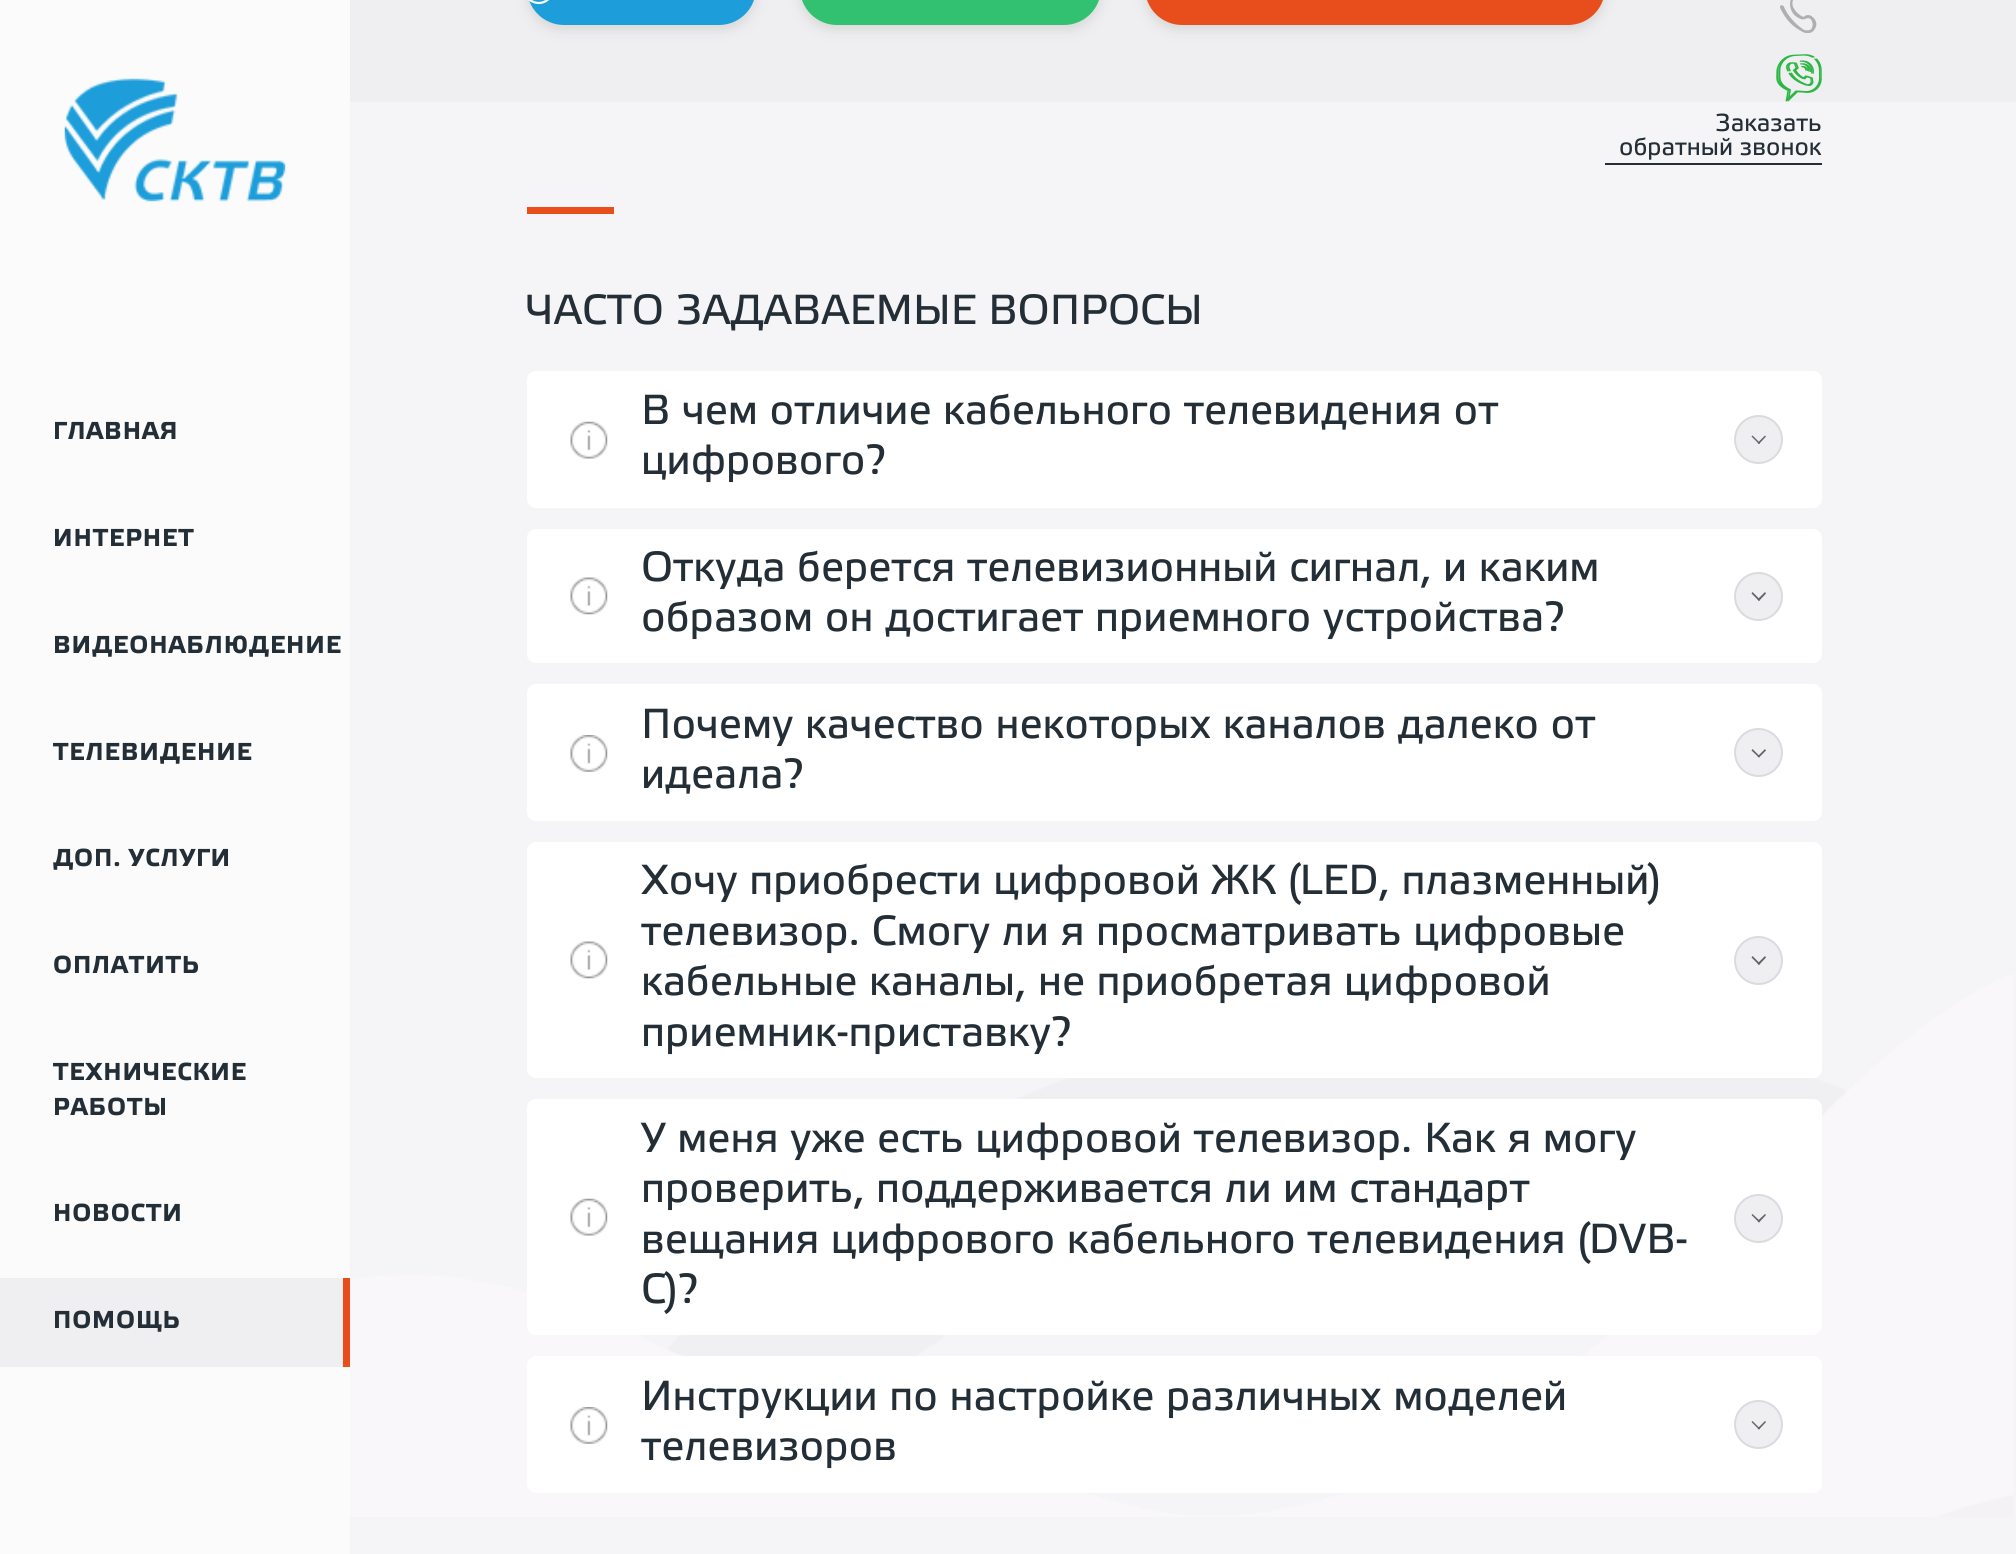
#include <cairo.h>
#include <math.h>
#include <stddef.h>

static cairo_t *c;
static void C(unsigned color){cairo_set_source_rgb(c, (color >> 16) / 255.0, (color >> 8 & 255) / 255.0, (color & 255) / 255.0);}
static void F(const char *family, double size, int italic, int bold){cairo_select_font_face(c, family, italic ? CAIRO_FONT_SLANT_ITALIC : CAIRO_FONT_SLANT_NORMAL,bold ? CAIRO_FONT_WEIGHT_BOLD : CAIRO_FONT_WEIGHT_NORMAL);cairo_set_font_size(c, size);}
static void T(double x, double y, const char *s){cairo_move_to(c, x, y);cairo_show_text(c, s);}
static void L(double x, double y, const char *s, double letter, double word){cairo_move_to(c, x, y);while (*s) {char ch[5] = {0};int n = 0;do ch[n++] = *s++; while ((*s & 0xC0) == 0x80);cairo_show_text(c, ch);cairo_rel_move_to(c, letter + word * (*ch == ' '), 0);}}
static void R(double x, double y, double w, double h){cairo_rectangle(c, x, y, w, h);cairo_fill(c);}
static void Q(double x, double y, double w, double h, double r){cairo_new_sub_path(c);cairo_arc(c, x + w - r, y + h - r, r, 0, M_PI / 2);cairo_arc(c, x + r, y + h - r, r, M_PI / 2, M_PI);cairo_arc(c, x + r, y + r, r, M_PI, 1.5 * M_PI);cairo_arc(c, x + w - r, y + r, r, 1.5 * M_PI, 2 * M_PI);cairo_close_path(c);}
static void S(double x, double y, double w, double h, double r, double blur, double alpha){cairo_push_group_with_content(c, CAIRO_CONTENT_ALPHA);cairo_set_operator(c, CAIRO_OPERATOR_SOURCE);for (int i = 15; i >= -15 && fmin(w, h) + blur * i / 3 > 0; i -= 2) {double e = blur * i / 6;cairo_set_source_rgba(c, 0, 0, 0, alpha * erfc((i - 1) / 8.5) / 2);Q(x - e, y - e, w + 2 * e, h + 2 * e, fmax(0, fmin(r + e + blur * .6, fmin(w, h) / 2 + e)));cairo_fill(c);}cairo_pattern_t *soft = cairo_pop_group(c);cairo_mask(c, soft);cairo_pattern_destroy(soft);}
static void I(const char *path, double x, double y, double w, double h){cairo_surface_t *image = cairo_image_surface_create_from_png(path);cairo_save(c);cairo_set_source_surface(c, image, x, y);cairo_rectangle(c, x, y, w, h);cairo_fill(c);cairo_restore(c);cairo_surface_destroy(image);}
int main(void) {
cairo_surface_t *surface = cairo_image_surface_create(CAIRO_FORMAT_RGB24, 2016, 1554);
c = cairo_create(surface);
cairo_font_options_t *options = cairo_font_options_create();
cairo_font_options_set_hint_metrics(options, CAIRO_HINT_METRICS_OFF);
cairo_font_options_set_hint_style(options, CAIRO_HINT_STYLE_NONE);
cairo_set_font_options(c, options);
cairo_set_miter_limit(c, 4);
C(0xf5f4f7);
cairo_paint(c);
C(0xfbfbfb);
R(0,0,350,1554);
I("1.png",64,78,222,124);
F("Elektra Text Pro",24.5,0,1);
C(0x242e36);
L(53,439,"ГЛАВНАЯ",.9,0);
L(53,546,"ИНТЕРНЕТ",.9,0);
L(53,653,"ВИДЕОНАБЛЮДЕНИЕ",.9,0);
L(53,760,"ТЕЛЕВИДЕНИЕ",.9,0);
L(53,866,"ДОП. УСЛУГИ",.9,0);
L(53,973,"ОПЛАТИТЬ",.9,0);
L(53,1080,"ТЕХНИЧЕСКИЕ",.9,0);
L(53,1115,"РАБОТЫ",.9,0);
L(53,1221,"НОВОСТИ",.9,0);
C(0xefeef1);
R(0,1278,343,89);
C(0xe84e1b);
R(343,1278,7,89);
C(0x242e36);
L(53,1328,"ПОМОЩЬ",.9,0);
C(0xefeef1);
R(350,0,1666,102);
C(0xd8d8d8);
S(527,-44,229,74,37,6,1);
C(0x1d9eda);
Q(527,-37,229,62,37);
cairo_fill(c);
I("2.png",528,0,21,5);
C(0xd8d8d8);
S(800,-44,301,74,37,6,1);
C(0x31c170);
Q(800,-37,301,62,37);
cairo_fill(c);
C(0xd8d8d8);
S(1145,-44,460,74,37,6,1);
C(0xe84e1b);
Q(1145,-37,460,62,37);
cairo_fill(c);
I("3.png",1780,0,37,33);
I("4.png",1776,54,46,48);
C(0x242e36);
R(1605,163,217,2);
F("Elektra Text Pro",24.5,0,0);
T(1715,131,"Заказать");
T(1619,155,"обратный звонок");
I("5.png",350,975,1663,542);
C(0xe84e1b);
R(527,207,87,7);
F("Elektra Text Pro",42,0,0);
C(0x242e36);
T(527,324,"ЧАСТО ЗАДАВАЕМЫЕ ВОПРОСЫ");
C(0xffffff);
Q(527,371,1295,137,9);
cairo_fill(c);
I("6.png",570,421,38,38);
C(0x242e36);
T(641,424,"В чем отличие кабельного телевидения от");
T(641,474,"цифрового?");
C(0xefeef1);
cairo_new_path(c);
cairo_arc(c,1758.5,439.5,23.5,0,2 * M_PI);
cairo_fill_preserve(c);
C(0xdbdade);
cairo_stroke(c);
C(0x5d646b);
cairo_new_path(c);
cairo_move_to(c,1766,436.5);
cairo_line_to(c,1759,444);
cairo_line_to(c,1757.5,443);
cairo_line_to(c,1765,435.5);
cairo_close_path(c);
cairo_fill(c);
cairo_new_path(c);
cairo_move_to(c,1760,443);
cairo_line_to(c,1759,444);
cairo_line_to(c,1751.5,436.5);
cairo_line_to(c,1752.5,435.5);
cairo_close_path(c);
cairo_fill(c);
C(0xffffff);
Q(527,529,1295,134,9);
cairo_fill(c);
I("7.png",570,577,38,38);
C(0x242e36);
T(641,581,"Откуда берется телевизионный сигнал, и каким");
T(641,631,"образом он достигает приемного устройства?");
C(0xefeef1);
cairo_new_path(c);
cairo_arc(c,1758.5,596.5,23.5,0,2 * M_PI);
cairo_fill_preserve(c);
C(0xdbdade);
cairo_stroke(c);
C(0x5d646b);
cairo_new_path(c);
cairo_move_to(c,1766,593.5);
cairo_line_to(c,1759,601);
cairo_line_to(c,1757.5,599.5);
cairo_line_to(c,1765,592);
cairo_close_path(c);
cairo_fill(c);
cairo_new_path(c);
cairo_move_to(c,1760,599.5);
cairo_line_to(c,1759,601);
cairo_line_to(c,1751.5,593.5);
cairo_line_to(c,1752.5,592);
cairo_close_path(c);
cairo_fill(c);
C(0xffffff);
Q(527,684,1295,137,9);
cairo_fill(c);
I("8.png",570,735,38,37);
C(0x242e36);
T(641,738,"Почему качество некоторых каналов далеко от");
T(641,788,"идеала?");
C(0xefeef1);
cairo_new_path(c);
cairo_arc(c,1758.5,752.5,23.5,0,2 * M_PI);
cairo_fill_preserve(c);
C(0xdbdade);
cairo_stroke(c);
C(0x5d646b);
cairo_new_path(c);
cairo_move_to(c,1766,750.5);
cairo_line_to(c,1759,757.5);
cairo_line_to(c,1757.5,756.5);
cairo_line_to(c,1765,749);
cairo_close_path(c);
cairo_fill(c);
cairo_new_path(c);
cairo_move_to(c,1760,756.5);
cairo_line_to(c,1759,757.5);
cairo_line_to(c,1751.5,750.5);
cairo_line_to(c,1752.5,749);
cairo_close_path(c);
cairo_fill(c);
C(0xffffff);
Q(527,842,1295,236,9);
cairo_fill(c);
I("7.png",570,941,38,38);
C(0x242e36);
T(641,894,"Хочу приобрести цифровой ЖК (LED, плазменный)");
T(641,945,"телевизор. Смогу ли я просматривать цифровые");
T(641,995,"кабельные каналы, не приобретая цифровой");
T(641,1046,"приемник-приставку?");
C(0xefeef1);
cairo_new_path(c);
cairo_arc(c,1758.5,960.5,23.5,0,2 * M_PI);
cairo_fill_preserve(c);
C(0xdbdade);
cairo_stroke(c);
C(0x5d646b);
cairo_new_path(c);
cairo_move_to(c,1766,957.5);
cairo_line_to(c,1759,965);
cairo_line_to(c,1757.5,963.5);
cairo_line_to(c,1765,956);
cairo_close_path(c);
cairo_fill(c);
cairo_new_path(c);
cairo_move_to(c,1760,963.5);
cairo_line_to(c,1759,965);
cairo_line_to(c,1751.5,957.5);
cairo_line_to(c,1752.5,956);
cairo_close_path(c);
cairo_fill(c);
C(0xffffff);
Q(527,1099,1295,236,9);
cairo_fill(c);
I("6.png",570,1198,38,38);
C(0x242e36);
T(641,1152,"У меня уже есть цифровой телевизор. Как я могу");
T(641,1202,"проверить, поддерживается ли им стандарт");
T(641,1253,"вещания цифрового кабельного телевидения (DVB-");
T(641,1303,"C)?");
C(0xefeef1);
cairo_new_path(c);
cairo_arc(c,1758.5,1218.5,23.5,0,2 * M_PI);
cairo_fill_preserve(c);
C(0xdbdade);
cairo_stroke(c);
C(0x5d646b);
cairo_new_path(c);
cairo_move_to(c,1766,1215);
cairo_line_to(c,1759,1222.5);
cairo_line_to(c,1757.5,1221);
cairo_line_to(c,1765,1214);
cairo_close_path(c);
cairo_fill(c);
cairo_new_path(c);
cairo_move_to(c,1760,1221);
cairo_line_to(c,1759,1222.5);
cairo_line_to(c,1751.5,1215);
cairo_line_to(c,1752.5,1214);
cairo_close_path(c);
cairo_fill(c);
C(0xffffff);
Q(527,1356,1295,137,9);
cairo_fill(c);
I("8.png",570,1407,38,37);
C(0x242e36);
T(641,1410,"Инструкции по настройке различных моделей");
T(641,1460,"телевизоров");
C(0xefeef1);
cairo_new_path(c);
cairo_arc(c,1758.5,1424.5,23.5,0,2 * M_PI);
cairo_fill_preserve(c);
C(0xdbdade);
cairo_stroke(c);
C(0x5d646b);
cairo_new_path(c);
cairo_move_to(c,1766,1422);
cairo_line_to(c,1759,1429.5);
cairo_line_to(c,1757.5,1428.5);
cairo_line_to(c,1765,1421);
cairo_close_path(c);
cairo_fill(c);
cairo_new_path(c);
cairo_move_to(c,1760,1428.5);
cairo_line_to(c,1759,1429.5);
cairo_line_to(c,1751.5,1422);
cairo_line_to(c,1752.5,1421);
cairo_close_path(c);
cairo_fill(c);
cairo_surface_write_to_png(surface, "o.png");
cairo_font_options_destroy(options);
cairo_destroy(c);
cairo_surface_destroy(surface);
return 0;
}
